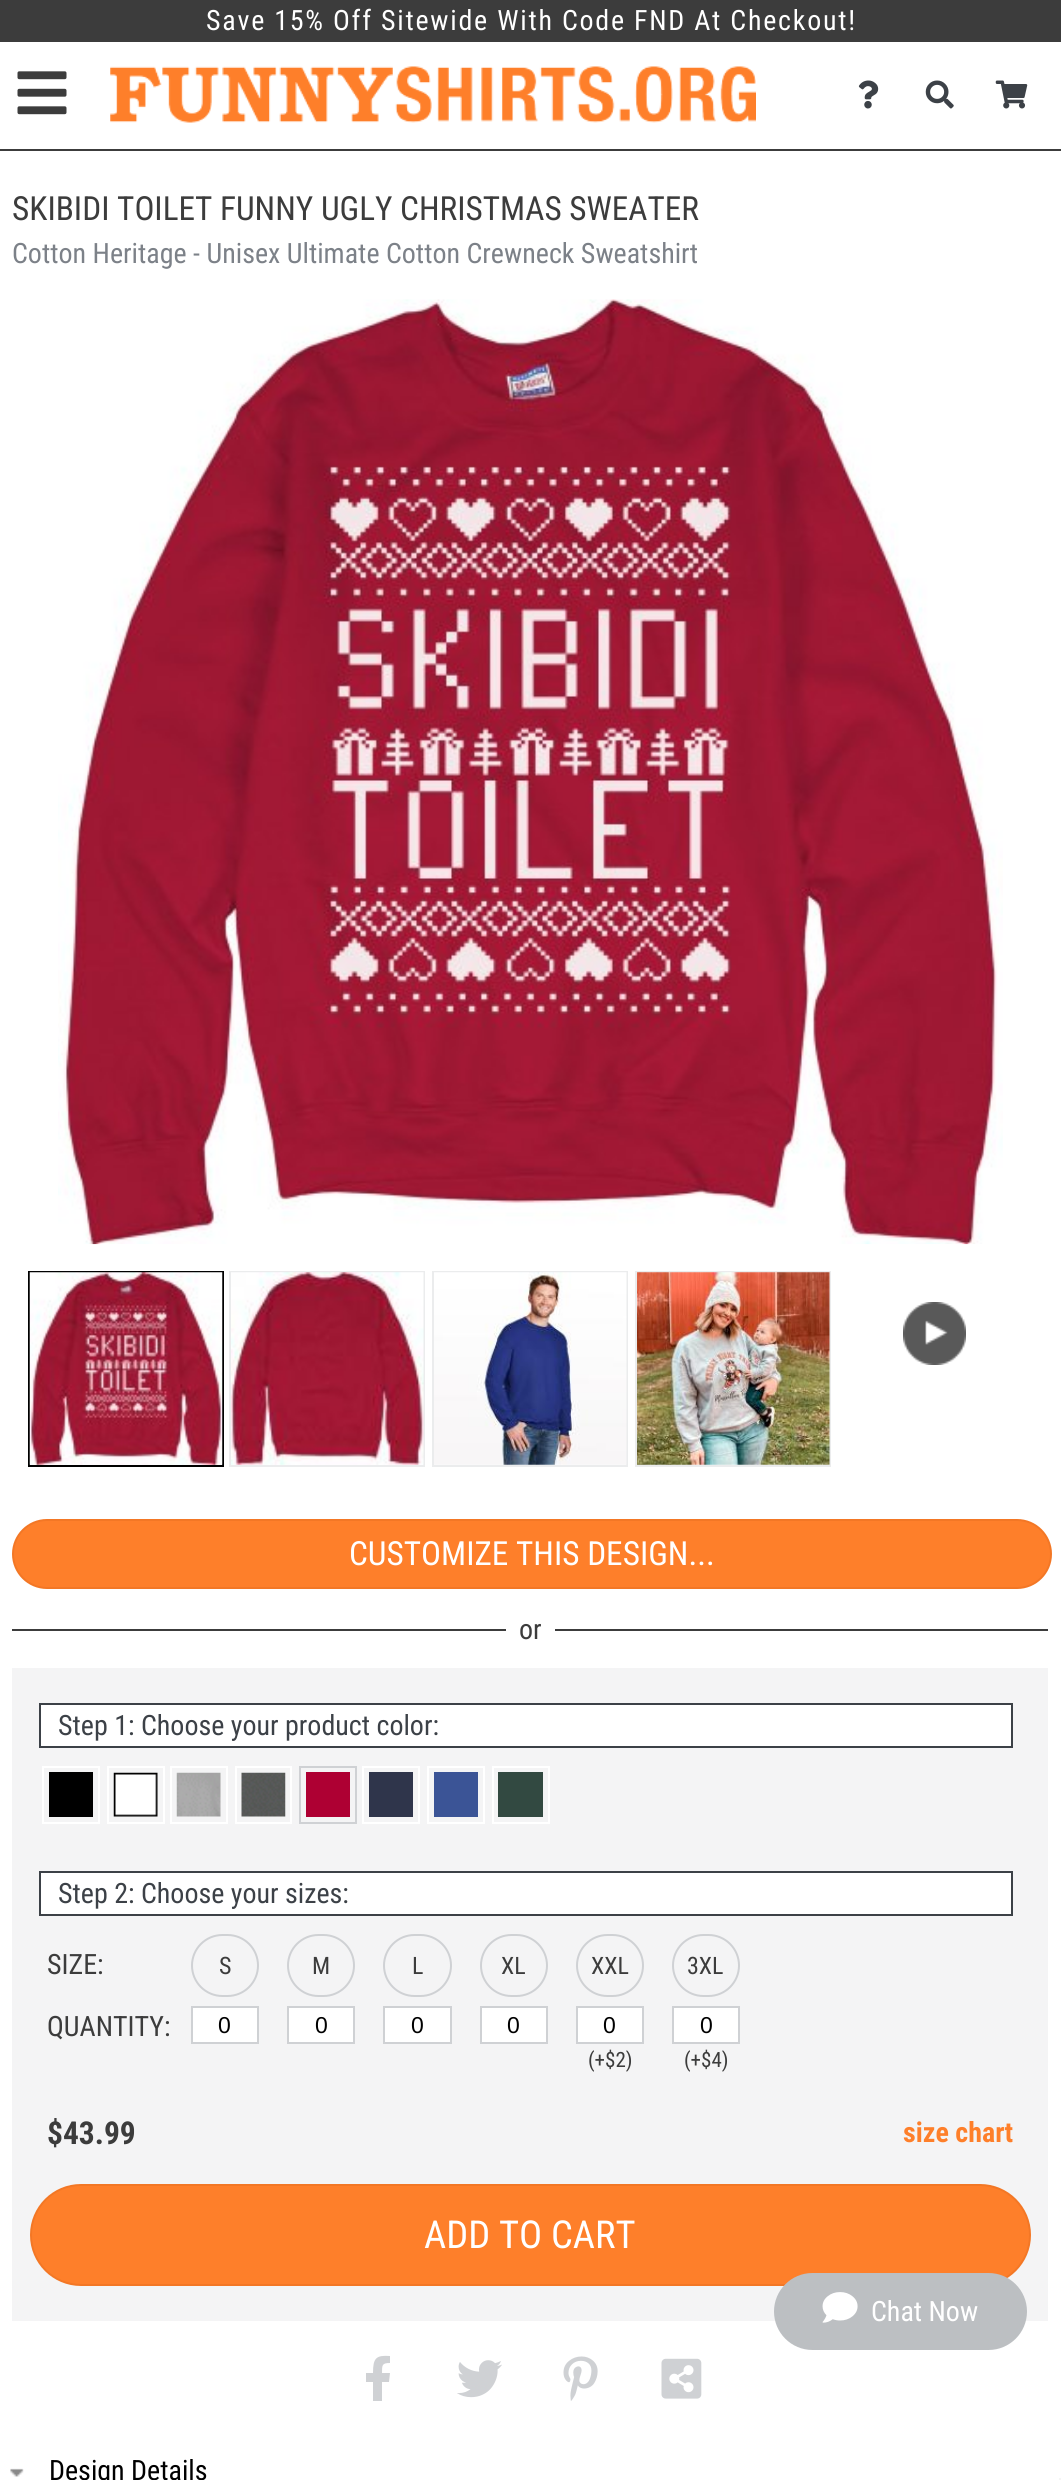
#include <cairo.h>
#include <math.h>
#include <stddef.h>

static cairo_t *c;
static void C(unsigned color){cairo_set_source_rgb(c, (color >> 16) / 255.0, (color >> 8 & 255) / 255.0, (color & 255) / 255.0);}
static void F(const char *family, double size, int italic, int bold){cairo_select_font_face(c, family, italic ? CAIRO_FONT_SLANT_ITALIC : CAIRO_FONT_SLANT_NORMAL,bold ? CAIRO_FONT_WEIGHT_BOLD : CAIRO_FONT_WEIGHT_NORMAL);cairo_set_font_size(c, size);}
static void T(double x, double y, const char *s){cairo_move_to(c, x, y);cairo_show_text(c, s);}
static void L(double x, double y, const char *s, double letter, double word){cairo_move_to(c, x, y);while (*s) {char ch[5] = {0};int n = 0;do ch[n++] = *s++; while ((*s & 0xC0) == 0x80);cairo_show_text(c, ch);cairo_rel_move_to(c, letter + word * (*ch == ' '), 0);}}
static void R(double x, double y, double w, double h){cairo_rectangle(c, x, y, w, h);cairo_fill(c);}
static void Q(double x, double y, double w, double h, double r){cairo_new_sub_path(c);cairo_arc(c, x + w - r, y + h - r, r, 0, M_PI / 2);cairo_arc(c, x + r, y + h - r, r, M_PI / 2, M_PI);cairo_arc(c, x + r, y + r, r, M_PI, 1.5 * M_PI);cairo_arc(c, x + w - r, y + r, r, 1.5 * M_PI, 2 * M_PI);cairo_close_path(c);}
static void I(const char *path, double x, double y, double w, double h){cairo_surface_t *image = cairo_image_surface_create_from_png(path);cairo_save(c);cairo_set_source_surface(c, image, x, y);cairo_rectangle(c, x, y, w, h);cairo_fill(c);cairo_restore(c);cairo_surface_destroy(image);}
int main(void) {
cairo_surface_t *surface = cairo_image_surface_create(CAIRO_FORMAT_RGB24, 1061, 2480);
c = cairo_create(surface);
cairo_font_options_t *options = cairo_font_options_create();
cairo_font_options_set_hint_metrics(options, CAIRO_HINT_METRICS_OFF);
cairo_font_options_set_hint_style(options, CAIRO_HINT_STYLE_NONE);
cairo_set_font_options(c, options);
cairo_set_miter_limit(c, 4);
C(0xffffff);
cairo_paint(c);
C(0x3c3c3c);
R(0,0,1061,42);
F("Roboto Condensed",28,0,0);
C(0xffffff);
L(206,30,"Save 15% Off Sitewide With Code FND At Checkout!",1.75,0);
C(0x3c3c3c);
R(0,149,1061,2);
I("1.png",17,71,50,44);
I("2.png",110,66,646,57);
I("3.png",858,80,21,29);
I("4.png",925,80,29,29);
I("5.png",995,80,33,29);
F("Roboto Condensed",33.25,0,0);
T(12,220,"SKIBIDI TOILET FUNNY UGLY CHRISTMAS SWEATER");
F("Roboto Condensed",28,0,0);
C(0x7c8188);
T(12,263,"Cotton Heritage - Unisex Ultimate Cotton Crewneck Sweatshirt");
I("6.png",58,299,945,946);
cairo_rectangle(c,29,1272,194,194);
C(0x000000);
cairo_stroke(c);
I("7.png",29,1272,194,193);
cairo_rectangle(c,230,1272,194,194);
C(0xebeced);
cairo_stroke(c);
I("8.png",231,1272,193,193);
cairo_rectangle(c,433,1272,194,194);
cairo_stroke(c);
I("9.png",434,1272,193,193);
cairo_rectangle(c,636,1272,194,194);
cairo_stroke(c);
I("10.png",637,1272,193,193);
I("11.png",903,1302,63,63);
C(0xfe7f2a);
Q(13,1520,1038,68,34);
cairo_fill_preserve(c);
C(0xf37725);
cairo_stroke(c);
F("Roboto Condensed",33.25,0,0);
C(0xffffff);
T(349,1565,"CUSTOMIZE THIS DESIGN...");
C(0x3c3c3c);
R(12,1629,1036,2);
C(0xffffff);
R(506,1629,49,2);
F("Roboto Condensed",28,0,0);
C(0x3c3c3c);
T(519,1639,"or");
C(0xf4f4f5);
R(12,1668,1036,653);
C(0xffffff);
cairo_rectangle(c,40,1704,972,43);
cairo_fill_preserve(c);
C(0x3c4147);
cairo_stroke(c);
T(58,1735,"Step 1: Choose your product color:");
cairo_rectangle(c,43,1767,56,56);
C(0xffffff);
cairo_stroke(c);
cairo_rectangle(c,108,1767,56,56);
cairo_stroke(c);
cairo_rectangle(c,171,1767,56,56);
cairo_stroke(c);
cairo_rectangle(c,236,1767,55,56);
cairo_stroke(c);
cairo_rectangle(c,300,1767,56,56);
C(0xcfd1d4);
cairo_stroke(c);
cairo_rectangle(c,363,1767,56,56);
C(0xffffff);
cairo_stroke(c);
cairo_rectangle(c,428,1767,56,56);
cairo_stroke(c);
cairo_rectangle(c,493,1767,56,56);
cairo_stroke(c);
C(0x000000);
R(49,1772,44,45);
I("12.png",113,1772,45,45);
I("13.png",176,1772,45,45);
I("14.png",241,1772,45,45);
C(0xae0033);
R(306,1772,44,45);
C(0x2f354b);
R(369,1772,44,45);
C(0x3b5496);
R(434,1772,44,45);
C(0x324941);
R(498,1772,45,45);
C(0xffffff);
cairo_rectangle(c,40,1872,972,43);
cairo_fill_preserve(c);
C(0x3c4147);
cairo_stroke(c);
T(58,1903,"Step 2: Choose your sizes:");
C(0x3c3c3c);
T(47,1974,"SIZE:");
T(47,2036,"QUANTITY:");
Q(192,1935,66,61,30.5);
C(0xcfd1d4);
cairo_stroke(c);
F("Roboto Condensed",24,0,0);
C(0x3c3c3c);
T(219,1974,"S");
C(0xffffff);
cairo_rectangle(c,192,2007,66,36);
cairo_fill_preserve(c);
C(0xcfd1d4);
cairo_stroke(c);
F("Liberation Sans",23,0,0);
C(0x000000);
T(218,2033,"0");
Q(288,1935,66,61,30.5);
C(0xcfd1d4);
cairo_stroke(c);
F("Roboto Condensed",24,0,0);
C(0x3c3c3c);
T(312,1974,"M");
C(0xffffff);
cairo_rectangle(c,288,2007,66,36);
cairo_fill_preserve(c);
C(0xcfd1d4);
cairo_stroke(c);
F("Liberation Sans",23,0,0);
C(0x000000);
T(315,2033,"0");
Q(384,1935,67,61,30.5);
C(0xcfd1d4);
cairo_stroke(c);
F("Roboto Condensed",24,0,0);
C(0x3c3c3c);
T(412,1974,"L");
C(0xffffff);
cairo_rectangle(c,384,2007,67,36);
cairo_fill_preserve(c);
C(0xcfd1d4);
cairo_stroke(c);
F("Liberation Sans",23,0,0);
C(0x000000);
T(411,2033,"0");
Q(481,1935,66,61,30.5);
C(0xcfd1d4);
cairo_stroke(c);
F("Roboto Condensed",24,0,0);
C(0x3c3c3c);
T(501,1974,"XL");
C(0xffffff);
cairo_rectangle(c,481,2007,66,36);
cairo_fill_preserve(c);
C(0xcfd1d4);
cairo_stroke(c);
F("Liberation Sans",23,0,0);
C(0x000000);
T(507,2033,"0");
Q(577,1935,66,61,30.5);
C(0xcfd1d4);
cairo_stroke(c);
F("Roboto Condensed",24,0,0);
C(0x3c3c3c);
T(591,1974,"XXL");
C(0xffffff);
cairo_rectangle(c,577,2007,66,36);
cairo_fill_preserve(c);
C(0xcfd1d4);
cairo_stroke(c);
F("Liberation Sans",23,0,0);
C(0x000000);
T(603,2033,"0");
F("Roboto Condensed",21,0,0);
C(0x3c3c3c);
T(588,2067,"(+$2)");
Q(673,1935,66,61,30.5);
C(0xcfd1d4);
cairo_stroke(c);
F("Roboto Condensed",24,0,0);
C(0x3c3c3c);
T(687,1974,"3XL");
C(0xffffff);
cairo_rectangle(c,673,2007,66,36);
cairo_fill_preserve(c);
C(0xcfd1d4);
cairo_stroke(c);
F("Liberation Sans",23,0,0);
C(0x000000);
T(700,2033,"0");
F("Roboto Condensed",21,0,0);
C(0x3c3c3c);
T(684,2067,"(+$4)");
F("Roboto Condensed",31.5,0,1);
T(47,2144,"$43.99");
F("Roboto Condensed",28,0,1);
C(0xfe7f2a);
T(903,2142,"size chart");
Q(31,2185,999,100,50);
cairo_fill_preserve(c);
C(0xf37725);
cairo_stroke(c);
F("Roboto Condensed",38.5,0,0);
C(0xffffff);
T(424,2248,"ADD TO CART");
C(0xcfd1d4);
cairo_new_path(c);
cairo_move_to(c,389,2382);
cairo_line_to(c,382,2382);
cairo_line_to(c,382,2401);
cairo_line_to(c,373,2401);
cairo_line_to(c,373,2382);
cairo_line_to(c,366,2382);
cairo_line_to(c,366,2373);
cairo_line_to(c,373,2373);
cairo_curve_to(c,373,2358,376,2355,390,2356);
cairo_line_to(c,390,2363);
cairo_curve_to(c,382,2363,382,2365,382,2373);
cairo_line_to(c,390,2373);
cairo_close_path(c);
cairo_fill(c);
I("15.png",457,2360,45,38);
I("16.png",563,2356,35,45);
I("17.png",661,2358,41,41);
I("18.png",10,2468,14,9);
F("Roboto Condensed",28,0,0);
C(0x000000);
T(49,2480,"Design Details");
C(0xbcbfc2);
Q(774,2273,253,77,38.5);
cairo_fill(c);
I("19.png",822,2292,36,31);
C(0xffffff);
T(871,2321,"Chat Now");
C(0xf5f5f5);
R(1059,2478,2,2);
cairo_surface_write_to_png(surface, "o.png");
cairo_font_options_destroy(options);
cairo_destroy(c);
cairo_surface_destroy(surface);
return 0;
}
